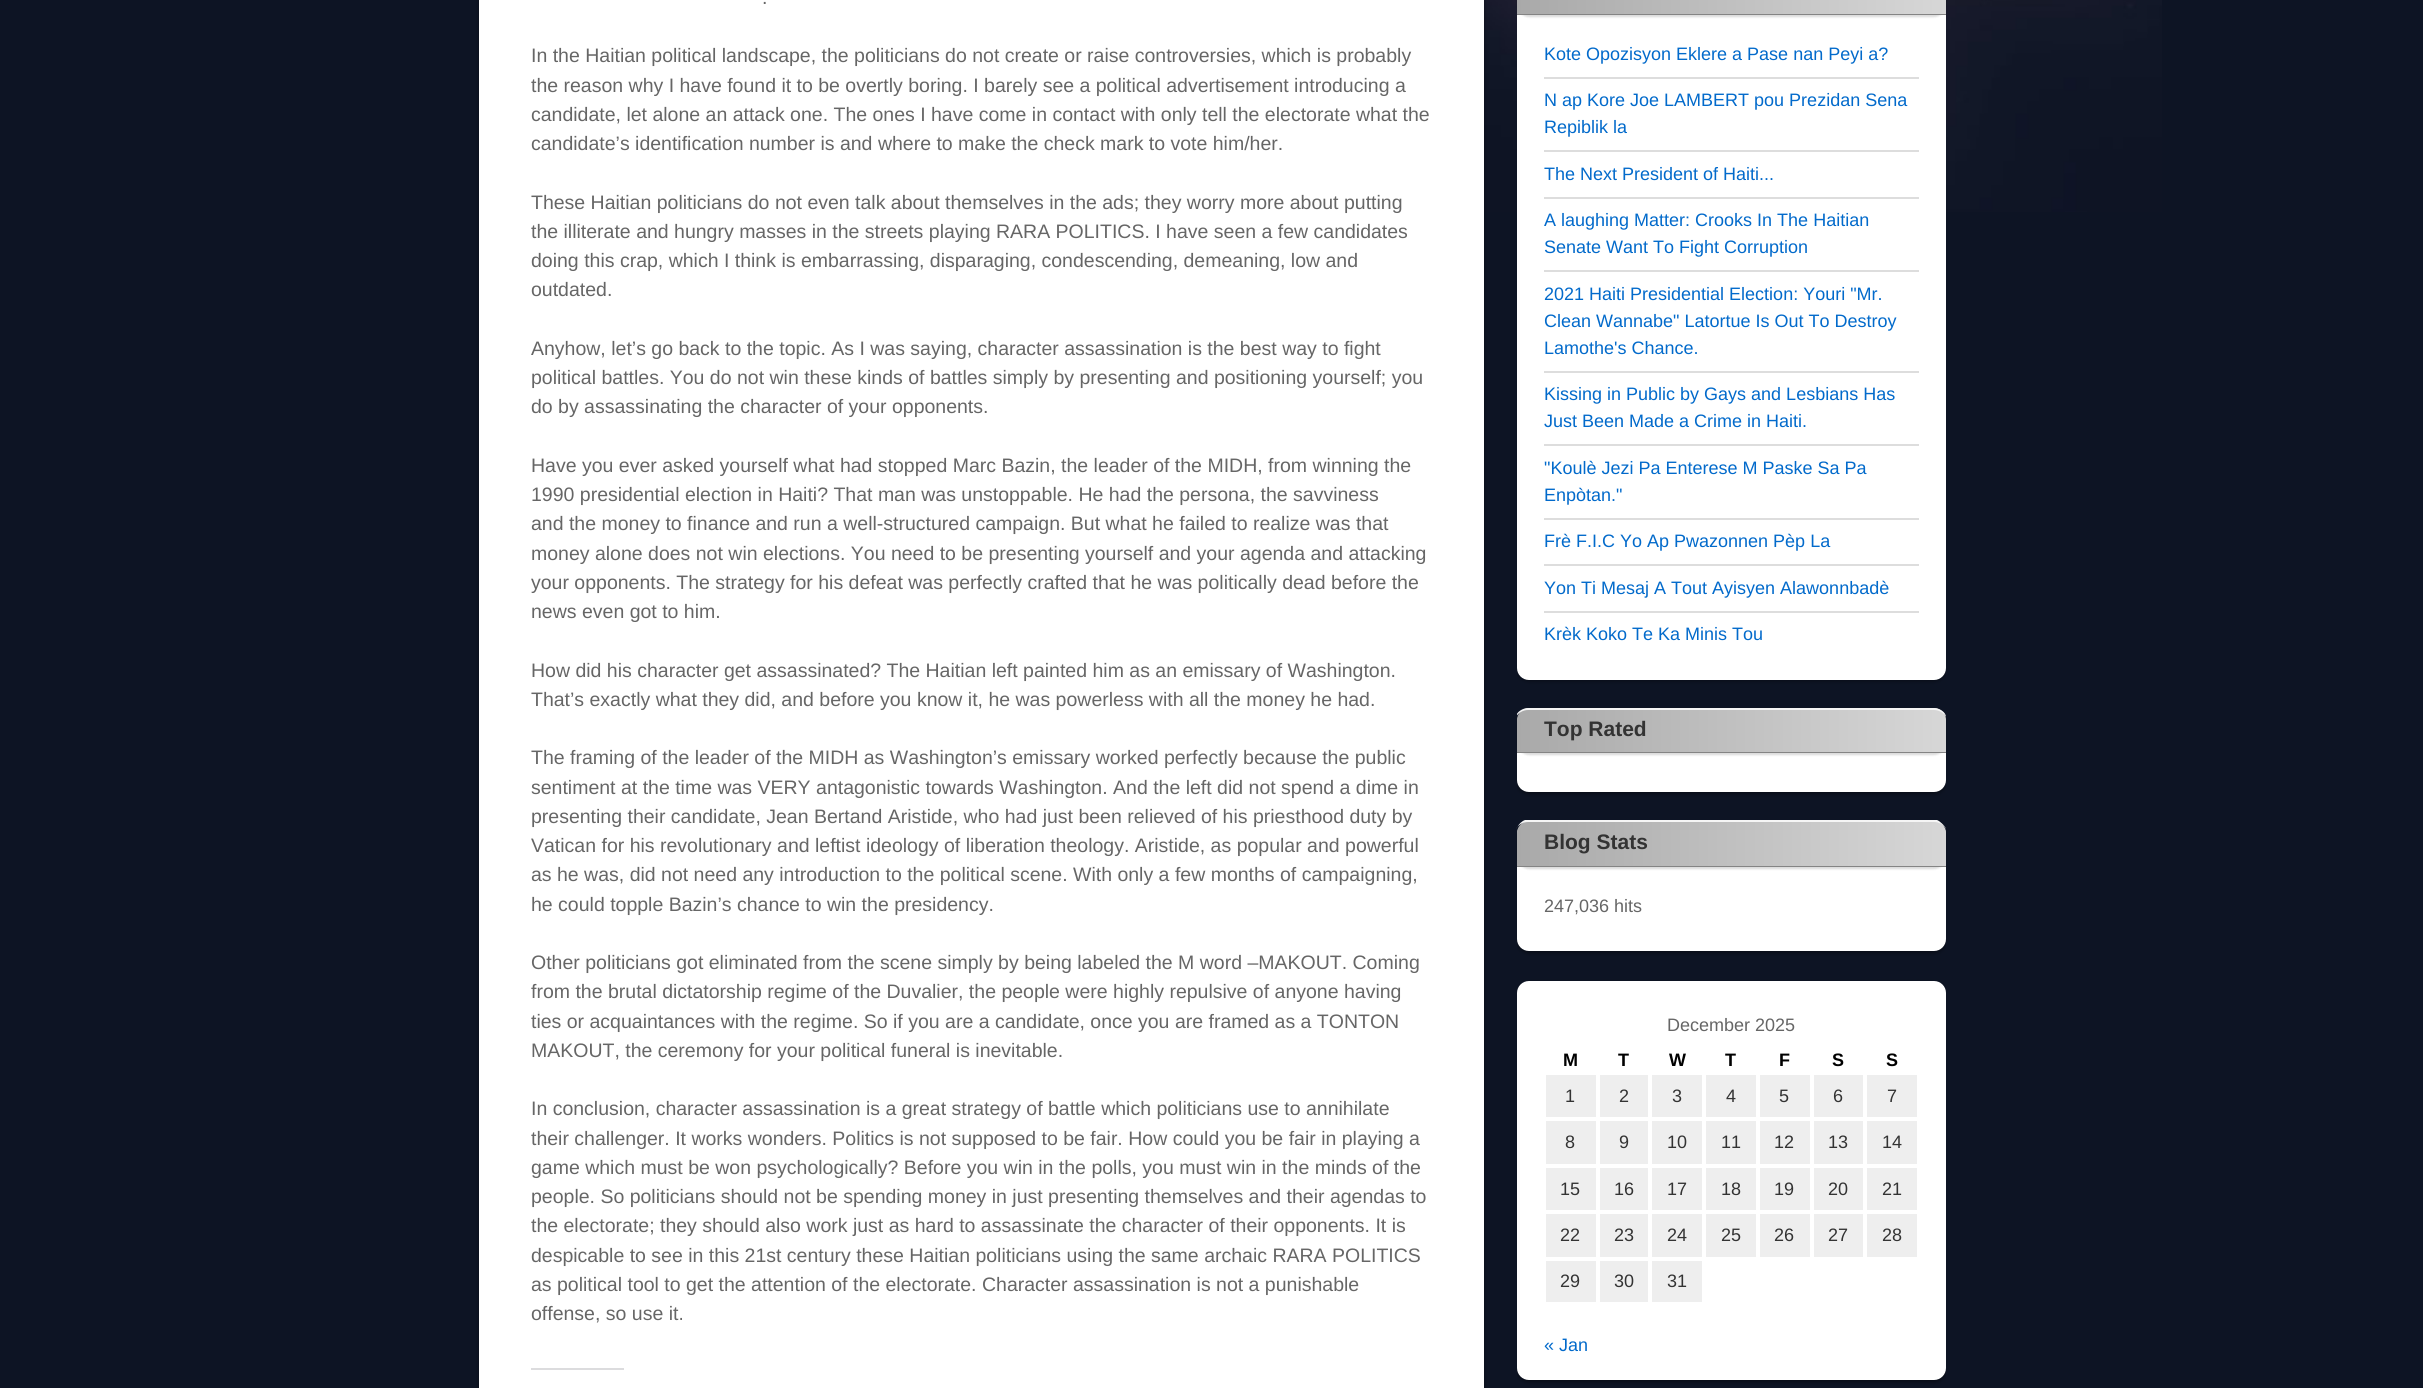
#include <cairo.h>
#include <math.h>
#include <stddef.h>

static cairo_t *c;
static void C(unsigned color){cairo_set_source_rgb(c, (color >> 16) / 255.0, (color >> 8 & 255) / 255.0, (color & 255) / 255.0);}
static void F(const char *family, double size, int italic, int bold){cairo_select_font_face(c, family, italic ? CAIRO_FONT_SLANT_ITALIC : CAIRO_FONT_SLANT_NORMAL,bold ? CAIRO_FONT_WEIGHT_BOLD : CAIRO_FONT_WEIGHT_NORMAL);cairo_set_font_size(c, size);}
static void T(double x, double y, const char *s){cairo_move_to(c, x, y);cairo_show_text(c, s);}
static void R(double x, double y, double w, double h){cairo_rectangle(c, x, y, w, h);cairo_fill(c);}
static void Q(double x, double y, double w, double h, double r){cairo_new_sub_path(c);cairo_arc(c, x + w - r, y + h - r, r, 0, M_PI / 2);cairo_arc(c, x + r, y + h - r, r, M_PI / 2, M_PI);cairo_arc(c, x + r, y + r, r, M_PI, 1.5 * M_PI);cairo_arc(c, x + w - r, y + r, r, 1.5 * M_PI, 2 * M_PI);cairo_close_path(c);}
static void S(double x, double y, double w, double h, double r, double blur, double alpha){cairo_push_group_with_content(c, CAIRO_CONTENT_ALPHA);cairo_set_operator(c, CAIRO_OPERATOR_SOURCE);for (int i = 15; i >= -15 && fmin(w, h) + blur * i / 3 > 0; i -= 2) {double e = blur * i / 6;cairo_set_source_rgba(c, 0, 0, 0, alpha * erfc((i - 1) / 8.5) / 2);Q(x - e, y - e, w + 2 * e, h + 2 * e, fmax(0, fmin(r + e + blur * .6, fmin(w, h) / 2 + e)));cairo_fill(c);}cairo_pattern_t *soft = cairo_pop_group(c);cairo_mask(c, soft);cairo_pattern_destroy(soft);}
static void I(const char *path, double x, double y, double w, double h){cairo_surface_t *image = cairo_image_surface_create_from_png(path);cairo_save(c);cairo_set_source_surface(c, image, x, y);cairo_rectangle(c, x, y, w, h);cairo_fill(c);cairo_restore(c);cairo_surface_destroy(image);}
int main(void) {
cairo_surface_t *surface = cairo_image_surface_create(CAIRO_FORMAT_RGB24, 2423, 1388);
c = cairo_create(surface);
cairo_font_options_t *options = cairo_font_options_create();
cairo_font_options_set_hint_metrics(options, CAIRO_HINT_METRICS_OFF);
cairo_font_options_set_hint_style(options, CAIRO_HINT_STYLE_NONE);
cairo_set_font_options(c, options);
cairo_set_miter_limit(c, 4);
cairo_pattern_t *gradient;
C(0x0d1424);
cairo_paint(c);
I("1.png",1484,0,678,212);
C(0x000000);
S(479,-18,1005,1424,12,2,.4);
C(0xffffff);
R(479,0,1005,1388);
F("Liberation Sans",19.5,0,0);
C(0x666666);
T(762,4,".");
T(531,62,"In the Haitian political landscape, the politicians do not create or raise controversies, which is probably");
T(531,92,"the reason why I have found it to be overtly boring. I barely see a political advertisement introducing a");
T(531,121,"candidate, let alone an attack one. The ones I have come in contact with only tell the electorate what the");
T(531,150,"candidate’s identification number is and where to make the check mark to vote him/her.");
T(531,209,"These Haitian politicians do not even talk about themselves in the ads; they worry more about putting");
T(531,238,"the illiterate and hungry masses in the streets playing RARA POLITICS. I have seen a few candidates");
T(531,267,"doing this crap, which I think is embarrassing, disparaging, condescending, demeaning, low and");
T(531,296,"outdated.");
T(531,355,"Anyhow, let’s go back to the topic. As I was saying, character assassination is the best way to fight");
T(531,384,"political battles. You do not win these kinds of battles simply by presenting and positioning yourself; you");
T(531,413,"do by assassinating the character of your opponents.");
T(531,472,"Have you ever asked yourself what had stopped Marc Bazin, the leader of the MIDH, from winning the");
T(531,501,"1990 presidential election in Haiti? That man was unstoppable. He had the persona, the savviness");
T(531,530,"and the money to finance and run a well-structured campaign. But what he failed to realize was that");
T(531,560,"money alone does not win elections. You need to be presenting yourself and your agenda and attacking");
T(531,589,"your opponents. The strategy for his defeat was perfectly crafted that he was politically dead before the");
T(531,618,"news even got to him.");
T(531,677,"How did his character get assassinated? The Haitian left painted him as an emissary of Washington.");
T(531,706,"That’s exactly what they did, and before you know it, he was powerless with all the money he had.");
T(531,764,"The framing of the leader of the MIDH as Washington’s emissary worked perfectly because the public");
T(531,794,"sentiment at the time was VERY antagonistic towards Washington. And the left did not spend a dime in");
T(531,823,"presenting their candidate, Jean Bertand Aristide, who had just been relieved of his priesthood duty by");
T(531,852,"Vatican for his revolutionary and leftist ideology of liberation theology. Aristide, as popular and powerful");
T(531,881,"as he was, did not need any introduction to the political scene. With only a few months of campaigning,");
T(531,911,"he could topple Bazin’s chance to win the presidency.");
T(531,969,"Other politicians got eliminated from the scene simply by being labeled the M word –MAKOUT. Coming");
T(531,998,"from the brutal dictatorship regime of the Duvalier, the people were highly repulsive of anyone having");
T(531,1028,"ties or acquaintances with the regime. So if you are a candidate, once you are framed as a TONTON");
T(531,1057,"MAKOUT, the ceremony for your political funeral is inevitable.");
T(531,1115,"In conclusion, character assassination is a great strategy of battle which politicians use to annihilate");
T(531,1145,"their challenger. It works wonders. Politics is not supposed to be fair. How could you be fair in playing a");
T(531,1174,"game which must be won psychologically? Before you win in the polls, you must win in the minds of the");
T(531,1203,"people. So politicians should not be spending money in just presenting themselves and their agendas to");
T(531,1232,"the electorate; they should also work just as hard to assassinate the character of their opponents. It is");
T(531,1262,"despicable to see in this 21st century these Haitian politicians using the same archaic RARA POLITICS");
T(531,1291,"as political tool to get the attention of the electorate. Character assassination is not a punishable");
T(531,1320,"offense, so use it.");
C(0xdcdcde);
R(531,1368,93,2);
cairo_save(c);
cairo_rectangle(c,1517,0,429,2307);
cairo_clip(c);
C(0x000000);
S(1517,-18,429,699,12,2,.4);
cairo_restore(c);
C(0xffffff);
Q(1517,-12,429,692,12);
cairo_fill(c);
C(0x000000);
S(1517,-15,429,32,12,1,.15);
gradient = cairo_pattern_create_linear(1946,-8,1517,-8);
cairo_pattern_add_color_stop_rgba(gradient,0,0.843,0.843,0.843,1);
cairo_pattern_add_color_stop_rgba(gradient,1,0.663,0.663,0.663,1);
cairo_set_source(c,gradient);
cairo_pattern_destroy(gradient);
R(1517,0,429,14);
C(0x848484);
R(1517,14,429,1);
C(0xdddddd);
R(1544,77,375,2);
F("Liberation Sans",18,0,0);
C(0x026acb);
T(1544,60,"Kote Opozisyon Eklere a Pase nan Peyi a?");
C(0xdddddd);
R(1544,150,375,2);
C(0x026acb);
T(1544,106,"N ap Kore Joe LAMBERT pou Prezidan Sena");
T(1544,133,"Repiblik la");
C(0xdddddd);
R(1544,197,375,2);
C(0x026acb);
T(1544,180,"The Next President of Haiti...");
C(0xdddddd);
R(1544,270,375,2);
C(0x026acb);
T(1544,226,"A laughing Matter: Crooks In The Haitian");
T(1544,253,"Senate Want To Fight Corruption");
C(0xdddddd);
R(1544,371,375,2);
C(0x026acb);
T(1544,300,"2021 Haiti Presidential Election: Youri \"Mr.");
T(1544,327,"Clean Wannabe\" Latortue Is Out To Destroy");
T(1544,354,"Lamothe's Chance.");
C(0xdddddd);
R(1544,444,375,2);
C(0x026acb);
T(1544,400,"Kissing in Public by Gays and Lesbians Has");
T(1544,427,"Just Been Made a Crime in Haiti.");
C(0xdddddd);
R(1544,518,375,2);
C(0x026acb);
T(1544,474,"\"Koulè Jezi Pa Enterese M Paske Sa Pa");
T(1544,501,"Enpòtan.\"");
C(0xdddddd);
R(1544,564,375,2);
C(0x026acb);
T(1544,547,"Frè F.I.C Yo Ap Pwazonnen Pèp La");
C(0xdddddd);
R(1544,611,375,2);
C(0x026acb);
T(1544,594,"Yon Ti Mesaj A Tout Ayisyen Alawonnbadè");
T(1544,640,"Krèk Koko Te Ka Minis Tou");
cairo_save(c);
cairo_rectangle(c,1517,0,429,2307);
cairo_clip(c);
C(0x000000);
S(1517,711,429,83,12,2,.4);
cairo_restore(c);
C(0xffffff);
Q(1517,710,429,82,12);
cairo_fill(c);
C(0x000000);
S(1517,710,429,45,12,1,.15);
gradient = cairo_pattern_create_linear(1946,731,1517,731);
cairo_pattern_add_color_stop_rgba(gradient,0,0.843,0.843,0.843,1);
cairo_pattern_add_color_stop_rgba(gradient,1,0.663,0.663,0.663,1);
cairo_set_source(c,gradient);
cairo_pattern_destroy(gradient);
cairo_new_path(c);
cairo_move_to(c,1529,708);
cairo_line_to(c,1934,708);
cairo_curve_to(c,1940.5,708,1946,713.5,1946,720);
cairo_line_to(c,1946,753);
cairo_line_to(c,1517,753);
cairo_line_to(c,1517,720);
cairo_curve_to(c,1517,713.5,1522.5,708,1529,708);
cairo_close_path(c);
cairo_fill(c);
cairo_save(c);
cairo_rectangle(c,1517,0,429,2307);
cairo_clip(c);
C(0xf5f5f5);
cairo_new_path(c);
cairo_move_to(c,1528,708);
cairo_curve_to(c,1523,708,1516,712,1516,717);
cairo_curve_to(c,1518,713,1523,710,1528,710);
cairo_line_to(c,1934,710);
cairo_curve_to(c,1939,710,1944,713,1946,717);
cairo_curve_to(c,1946,712,1939,708,1934,708);
cairo_close_path(c);
cairo_fill(c);
cairo_restore(c);
C(0x848484);
R(1517,752,429,1);
F("Liberation Sans",21,0,1);
C(0x333333);
T(1544,736,"Top Rated");
cairo_save(c);
cairo_rectangle(c,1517,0,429,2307);
cairo_clip(c);
C(0x000000);
S(1517,824,429,129,12,2,.4);
cairo_restore(c);
C(0xffffff);
Q(1517,822,429,129,12);
cairo_fill(c);
C(0x000000);
S(1517,822,429,47,12,1,.15);
gradient = cairo_pattern_create_linear(1946,844,1517,844);
cairo_pattern_add_color_stop_rgba(gradient,0,0.843,0.843,0.843,1);
cairo_pattern_add_color_stop_rgba(gradient,1,0.663,0.663,0.663,1);
cairo_set_source(c,gradient);
cairo_pattern_destroy(gradient);
cairo_new_path(c);
cairo_move_to(c,1529,821);
cairo_line_to(c,1934,821);
cairo_curve_to(c,1940.5,821,1946,826.5,1946,833);
cairo_line_to(c,1946,867);
cairo_line_to(c,1517,867);
cairo_line_to(c,1517,833);
cairo_curve_to(c,1517,826.5,1522.5,821,1529,821);
cairo_close_path(c);
cairo_fill(c);
C(0xf5f5f5);
cairo_new_path(c);
cairo_move_to(c,1528,822);
cairo_curve_to(c,1523,822,1518,825,1516,829);
cairo_line_to(c,1518,826);
cairo_curve_to(c,1519,824,1522,821,1525,820);
cairo_line_to(c,1937,820);
cairo_curve_to(c,1940,821,1946,827,1946,829);
cairo_curve_to(c,1944,825,1939,822,1934,822);
cairo_close_path(c);
cairo_fill(c);
C(0x848484);
R(1517,866,429,1);
C(0x333333);
T(1544,849,"Blog Stats");
F("Liberation Sans",18,0,0);
C(0x666666);
T(1544,912,"247,036 hits");
cairo_save(c);
cairo_rectangle(c,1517,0,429,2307);
cairo_clip(c);
C(0x000000);
S(1517,983,429,399,12,2,.4);
cairo_restore(c);
C(0xffffff);
Q(1517,981,429,399,12);
cairo_fill(c);
C(0x666666);
T(1667,1031,"December 2025");
F("Liberation Sans",18,0,1);
C(0x000000);
T(1563,1066,"M");
T(1618,1066,"T");
T(1669,1066,"W");
T(1725,1066,"T");
T(1779,1066,"F");
T(1832,1066,"S");
T(1886,1066,"S");
C(0xeeeeee);
R(1546,1075,50,42);
F("Liberation Sans",18,0,0);
C(0x333333);
T(1565,1102,"1");
C(0xeeeeee);
R(1600,1075,48,42);
C(0x333333);
T(1619,1102,"2");
C(0xeeeeee);
R(1652,1075,50,42);
C(0x333333);
T(1672,1102,"3");
C(0xeeeeee);
R(1706,1075,50,42);
C(0x333333);
T(1726,1102,"4");
C(0xeeeeee);
R(1760,1075,50,42);
C(0x333333);
T(1779,1102,"5");
C(0xeeeeee);
R(1814,1075,49,42);
C(0x333333);
T(1833,1102,"6");
C(0xeeeeee);
R(1867,1075,50,42);
C(0x333333);
T(1887,1102,"7");
C(0xeeeeee);
R(1546,1121,50,43);
C(0x333333);
T(1565,1148,"8");
C(0xeeeeee);
R(1600,1121,48,43);
C(0x333333);
T(1619,1148,"9");
C(0xeeeeee);
R(1652,1121,50,43);
C(0x333333);
T(1667,1148,"10");
C(0xeeeeee);
R(1706,1121,50,43);
C(0x333333);
T(1721,1148,"11");
C(0xeeeeee);
R(1760,1121,50,43);
C(0x333333);
T(1774,1148,"12");
C(0xeeeeee);
R(1814,1121,49,43);
C(0x333333);
T(1828,1148,"13");
C(0xeeeeee);
R(1867,1121,50,43);
C(0x333333);
T(1882,1148,"14");
C(0xeeeeee);
R(1546,1168,50,42);
C(0x333333);
T(1560,1195,"15");
C(0xeeeeee);
R(1600,1168,48,42);
C(0x333333);
T(1614,1195,"16");
C(0xeeeeee);
R(1652,1168,50,42);
C(0x333333);
T(1667,1195,"17");
C(0xeeeeee);
R(1706,1168,50,42);
C(0x333333);
T(1721,1195,"18");
C(0xeeeeee);
R(1760,1168,50,42);
C(0x333333);
T(1774,1195,"19");
C(0xeeeeee);
R(1814,1168,49,42);
C(0x333333);
T(1828,1195,"20");
C(0xeeeeee);
R(1867,1168,50,42);
C(0x333333);
T(1882,1195,"21");
C(0xeeeeee);
R(1546,1214,50,43);
C(0x333333);
T(1560,1241,"22");
C(0xeeeeee);
R(1600,1214,48,43);
C(0x333333);
T(1614,1241,"23");
C(0xeeeeee);
R(1652,1214,50,43);
C(0x333333);
T(1667,1241,"24");
C(0xeeeeee);
R(1706,1214,50,43);
C(0x333333);
T(1721,1241,"25");
C(0xeeeeee);
R(1760,1214,50,43);
C(0x333333);
T(1774,1241,"26");
C(0xeeeeee);
R(1814,1214,49,43);
C(0x333333);
T(1828,1241,"27");
C(0xeeeeee);
R(1867,1214,50,43);
C(0x333333);
T(1882,1241,"28");
C(0xeeeeee);
R(1546,1261,50,41);
C(0x333333);
T(1560,1287,"29");
C(0xeeeeee);
R(1600,1261,48,41);
C(0x333333);
T(1614,1287,"30");
C(0xeeeeee);
R(1652,1261,50,41);
C(0x333333);
T(1667,1287,"31");
C(0x026acb);
T(1544,1351,"« Jan");
cairo_surface_write_to_png(surface, "o.png");
cairo_font_options_destroy(options);
cairo_destroy(c);
cairo_surface_destroy(surface);
return 0;
}
